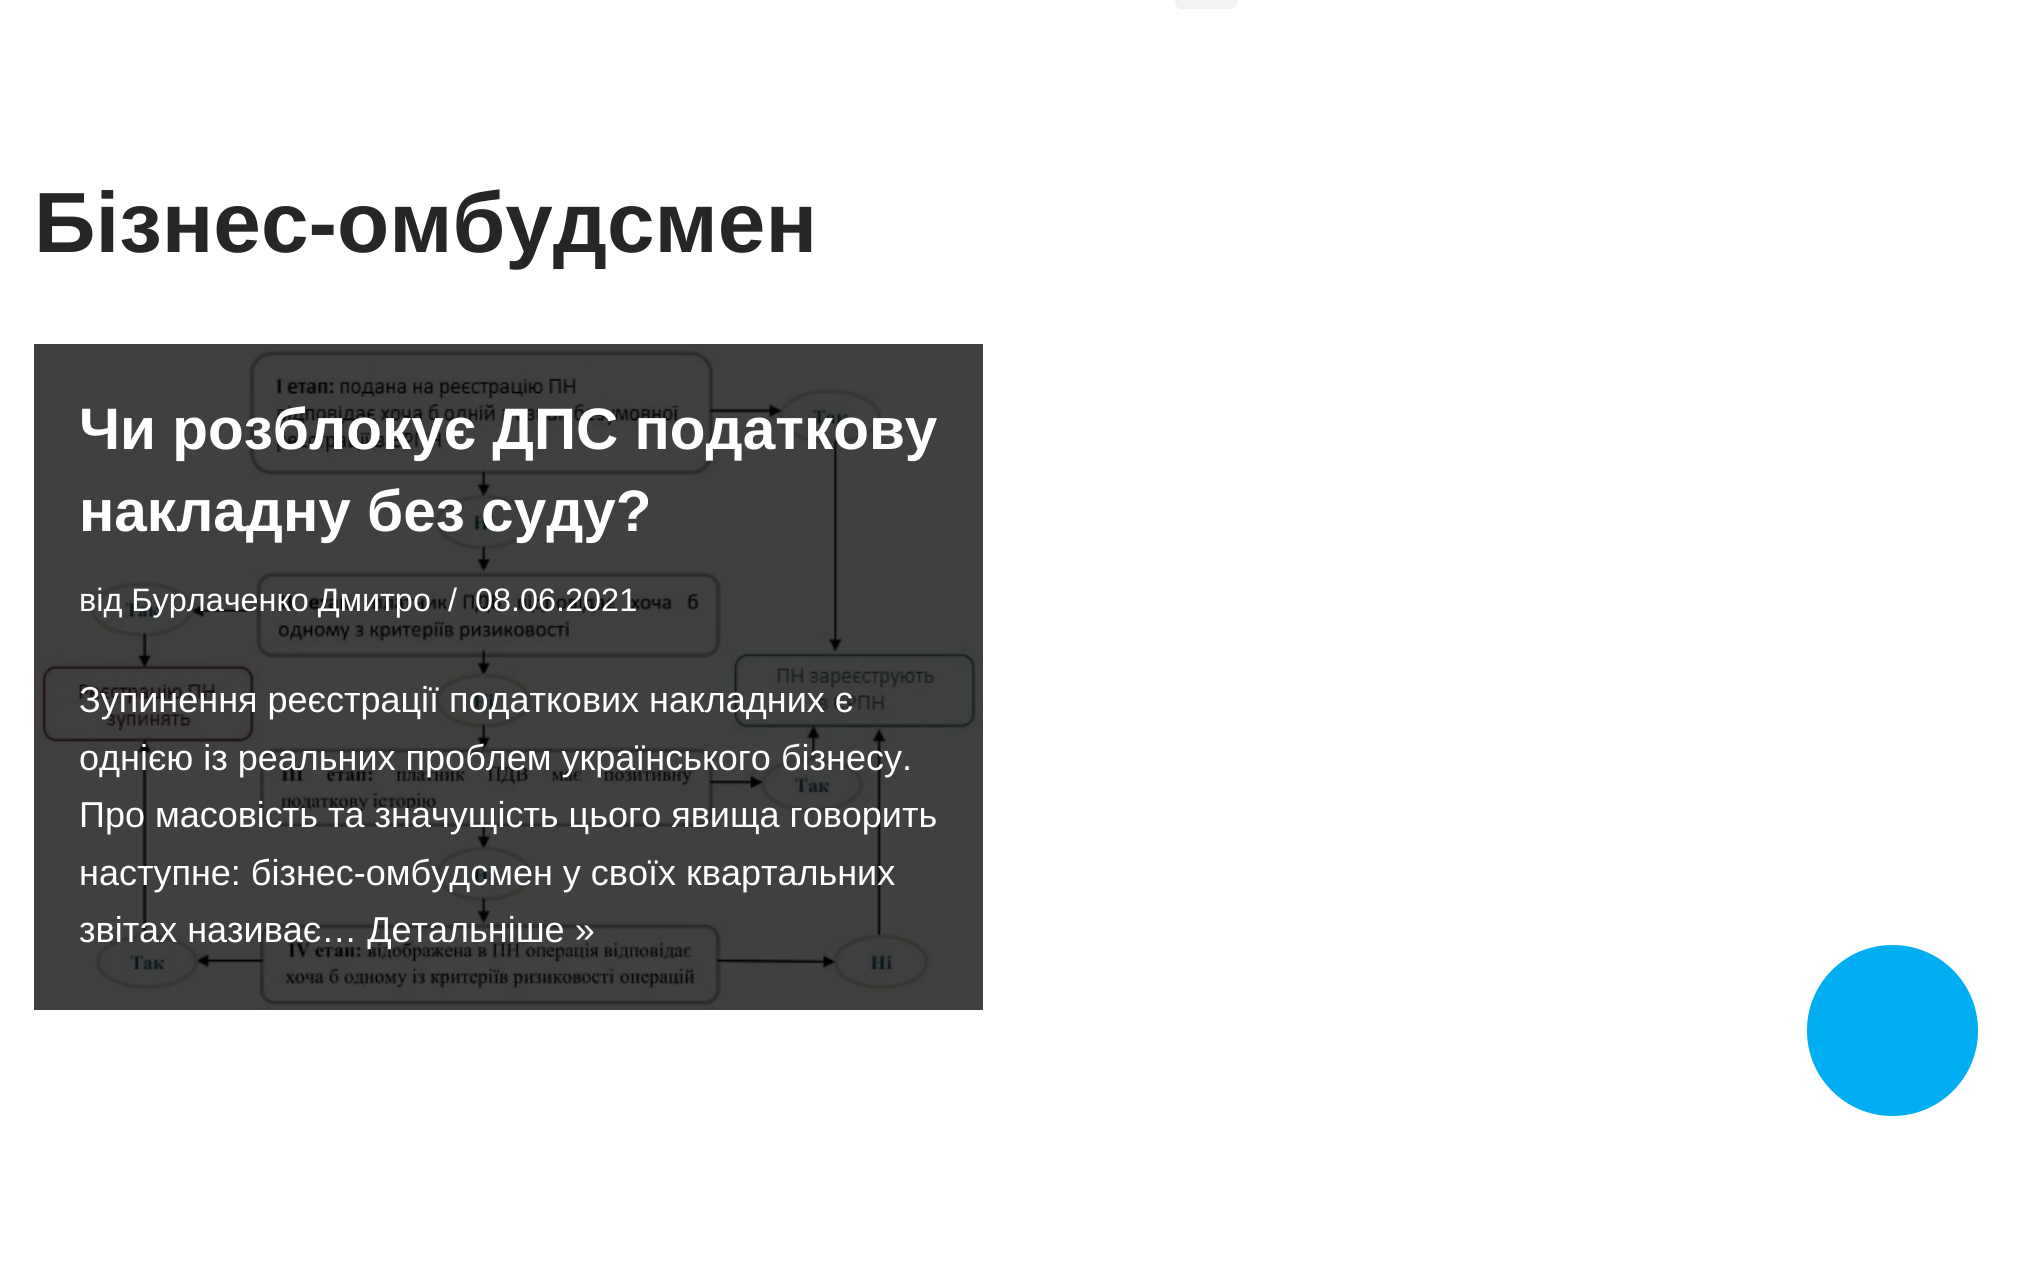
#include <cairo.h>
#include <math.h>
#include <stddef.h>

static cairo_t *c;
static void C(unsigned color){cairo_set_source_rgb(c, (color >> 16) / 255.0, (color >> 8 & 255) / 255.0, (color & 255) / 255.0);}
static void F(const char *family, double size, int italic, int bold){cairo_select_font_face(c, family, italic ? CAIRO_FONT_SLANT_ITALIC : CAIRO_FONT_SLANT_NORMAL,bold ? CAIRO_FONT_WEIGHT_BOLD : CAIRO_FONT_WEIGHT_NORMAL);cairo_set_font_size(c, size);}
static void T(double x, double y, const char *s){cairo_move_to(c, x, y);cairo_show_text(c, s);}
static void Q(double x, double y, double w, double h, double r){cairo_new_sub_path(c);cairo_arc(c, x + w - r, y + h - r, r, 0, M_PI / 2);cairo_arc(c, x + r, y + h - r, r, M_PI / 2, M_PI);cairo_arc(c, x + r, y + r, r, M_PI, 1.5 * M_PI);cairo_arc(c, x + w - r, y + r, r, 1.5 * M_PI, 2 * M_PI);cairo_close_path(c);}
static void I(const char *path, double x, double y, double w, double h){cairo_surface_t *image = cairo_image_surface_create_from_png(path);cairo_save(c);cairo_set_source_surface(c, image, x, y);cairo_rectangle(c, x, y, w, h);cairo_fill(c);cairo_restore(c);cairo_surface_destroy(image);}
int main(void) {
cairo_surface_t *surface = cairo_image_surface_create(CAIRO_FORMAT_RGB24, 2034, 1267);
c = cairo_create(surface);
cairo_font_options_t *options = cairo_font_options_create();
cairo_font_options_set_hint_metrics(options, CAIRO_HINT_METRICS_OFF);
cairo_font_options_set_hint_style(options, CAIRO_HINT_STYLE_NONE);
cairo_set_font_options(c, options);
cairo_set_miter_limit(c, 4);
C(0xffffff);
cairo_paint(c);
C(0xf2f2f2);
Q(1175,-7,63,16,7);
cairo_fill(c);
F("Liberation Sans",85.5,0,1);
C(0x272626);
T(34,252,"Бізнес-омбудсмен");
I("1.png",34,344,949,666);
F("Liberation Sans",58.5,0,1);
C(0xffffff);
T(79,449,"Чи розблокує ДПС податкову");
T(79,531,"накладну без суду?");
F("Liberation Sans",32.4,0,0);
T(79,611,"від Бурлаченко Дмитро");
T(448,611,"/");
T(475,611,"08.06.2021");
F("Liberation Sans",36,0,0);
T(79,712,"Зупинення реєстрації податкових накладних є");
T(79,770,"однією із реальних проблем українського бізнесу.");
T(79,827,"Про масовість та значущість цього явища говорить");
T(79,885,"наступне: бізнес-омбудсмен у своїх квартальних");
T(79,942,"звітах називає… Детальніше »");
C(0x00aff2);
cairo_new_path(c);
cairo_arc(c,1892.5,1030.5,85.5,0,2 * M_PI);
cairo_fill(c);
cairo_set_source_rgba(c,0,0.686,0.949,0.25);
cairo_arc(c,1892.5,1030.5,85.5,0,2 * M_PI);
cairo_fill(c);
cairo_surface_write_to_png(surface, "o.png");
cairo_font_options_destroy(options);
cairo_destroy(c);
cairo_surface_destroy(surface);
return 0;
}
